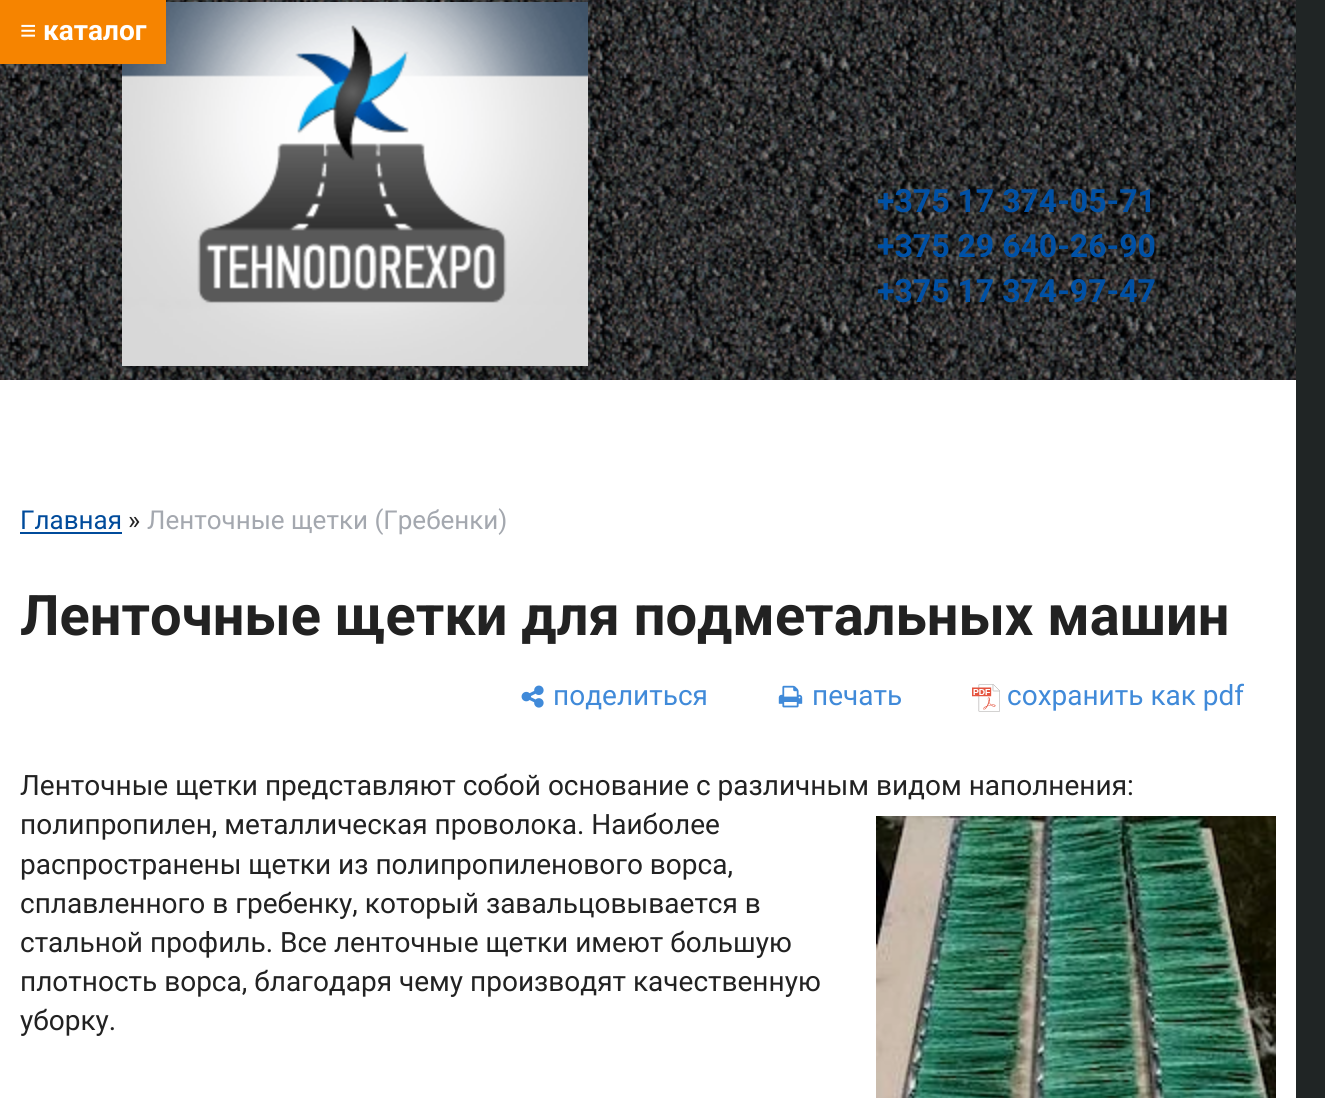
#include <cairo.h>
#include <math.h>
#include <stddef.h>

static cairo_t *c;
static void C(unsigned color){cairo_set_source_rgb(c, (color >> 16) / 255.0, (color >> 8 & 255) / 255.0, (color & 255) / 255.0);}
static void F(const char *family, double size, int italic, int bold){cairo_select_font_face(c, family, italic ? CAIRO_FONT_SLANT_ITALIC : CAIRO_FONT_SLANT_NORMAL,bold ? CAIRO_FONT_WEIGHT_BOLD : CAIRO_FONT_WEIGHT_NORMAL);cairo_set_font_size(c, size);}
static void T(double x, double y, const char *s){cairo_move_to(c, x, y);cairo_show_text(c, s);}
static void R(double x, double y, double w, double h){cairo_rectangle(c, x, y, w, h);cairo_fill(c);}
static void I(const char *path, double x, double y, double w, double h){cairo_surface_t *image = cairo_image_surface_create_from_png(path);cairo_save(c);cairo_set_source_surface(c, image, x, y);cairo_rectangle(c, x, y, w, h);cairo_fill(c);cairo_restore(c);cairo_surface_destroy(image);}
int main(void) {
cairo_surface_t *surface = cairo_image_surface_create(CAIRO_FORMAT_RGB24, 1325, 1098);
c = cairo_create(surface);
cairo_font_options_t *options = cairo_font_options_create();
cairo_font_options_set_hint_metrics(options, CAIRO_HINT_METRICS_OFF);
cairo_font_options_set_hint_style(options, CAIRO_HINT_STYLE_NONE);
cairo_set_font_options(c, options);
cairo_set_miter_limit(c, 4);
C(0x202525);
cairo_paint(c);
I("1.png",0,0,1296,380);
I("2.png",122,2,466,364);
C(0xf68400);
R(0,0,166,64);
F("Liberation Sans",28,0,1);
C(0xffffff);
T(20,40,"≡");
F("Roboto",28,0,1);
T(43,40,"каталог");
F("Roboto",32,0,1);
C(0x0051a6);
T(877,212,"+375 17 374-05-71");
T(877,257,"+375 29 640-26-90");
T(877,302,"+375 17 374-97-47");
C(0xffffff);
R(0,380,1296,718);
F("Roboto",26,0,0);
C(0x004b9b);
T(20,529,"Главная");
R(20,532,102,2);
C(0x222222);
T(128,529,"»");
C(0xa4a8af);
T(147,529,"Ленточные щетки (Гребенки)");
F("Roboto",56,0,1);
C(0x222222);
T(20,635,"Ленточные щетки для подметальных машин");
I("3.png",521,685,23,23);
F("Roboto",28,0,0);
C(0x408ad9);
T(553,705,"поделиться");
I("4.png",778,685,25,23);
T(812,705,"печать");
I("5.png",972,684,28,28);
T(1007,705,"сохранить как pdf");
C(0x222222);
T(20,795,"Ленточные щетки представляют собой основание с различным видом наполнения:");
T(20,834,"полипропилен, металлическая проволока. Наиболее");
I("6.png",876,816,400,282);
T(20,874,"распространены щетки из полипропиленового ворса,");
T(20,913,"сплавленного в гребенку, который завальцовывается в");
T(20,952,"стальной профиль. Все ленточные щетки имеют большую");
T(20,991,"плотность ворса, благодаря чему производят качественную");
T(20,1030,"уборку.");
cairo_surface_write_to_png(surface, "o.png");
cairo_font_options_destroy(options);
cairo_destroy(c);
cairo_surface_destroy(surface);
return 0;
}
